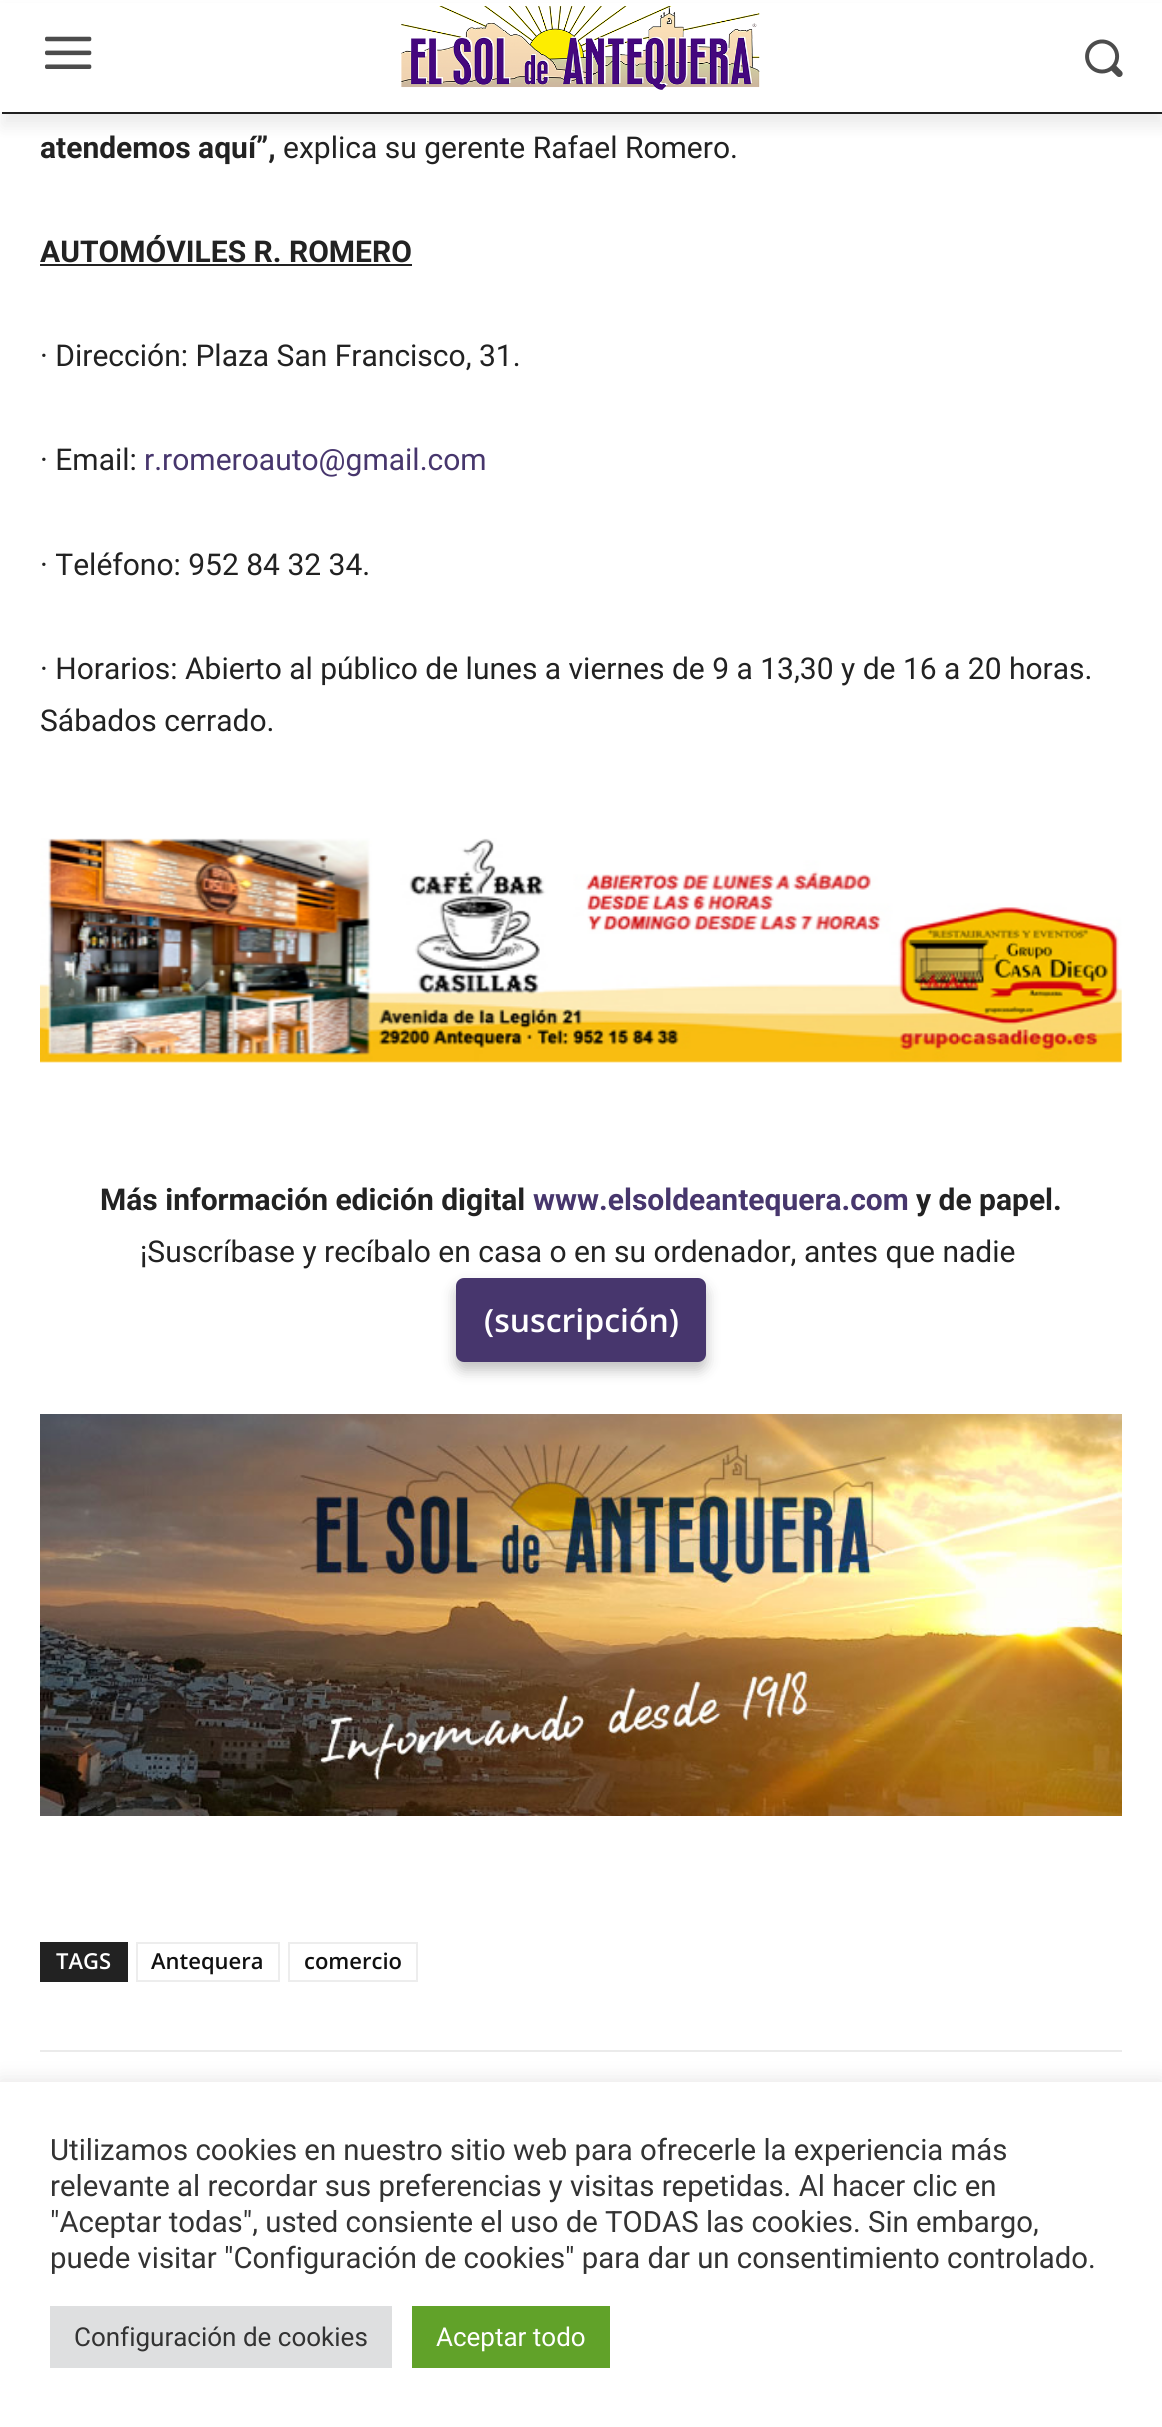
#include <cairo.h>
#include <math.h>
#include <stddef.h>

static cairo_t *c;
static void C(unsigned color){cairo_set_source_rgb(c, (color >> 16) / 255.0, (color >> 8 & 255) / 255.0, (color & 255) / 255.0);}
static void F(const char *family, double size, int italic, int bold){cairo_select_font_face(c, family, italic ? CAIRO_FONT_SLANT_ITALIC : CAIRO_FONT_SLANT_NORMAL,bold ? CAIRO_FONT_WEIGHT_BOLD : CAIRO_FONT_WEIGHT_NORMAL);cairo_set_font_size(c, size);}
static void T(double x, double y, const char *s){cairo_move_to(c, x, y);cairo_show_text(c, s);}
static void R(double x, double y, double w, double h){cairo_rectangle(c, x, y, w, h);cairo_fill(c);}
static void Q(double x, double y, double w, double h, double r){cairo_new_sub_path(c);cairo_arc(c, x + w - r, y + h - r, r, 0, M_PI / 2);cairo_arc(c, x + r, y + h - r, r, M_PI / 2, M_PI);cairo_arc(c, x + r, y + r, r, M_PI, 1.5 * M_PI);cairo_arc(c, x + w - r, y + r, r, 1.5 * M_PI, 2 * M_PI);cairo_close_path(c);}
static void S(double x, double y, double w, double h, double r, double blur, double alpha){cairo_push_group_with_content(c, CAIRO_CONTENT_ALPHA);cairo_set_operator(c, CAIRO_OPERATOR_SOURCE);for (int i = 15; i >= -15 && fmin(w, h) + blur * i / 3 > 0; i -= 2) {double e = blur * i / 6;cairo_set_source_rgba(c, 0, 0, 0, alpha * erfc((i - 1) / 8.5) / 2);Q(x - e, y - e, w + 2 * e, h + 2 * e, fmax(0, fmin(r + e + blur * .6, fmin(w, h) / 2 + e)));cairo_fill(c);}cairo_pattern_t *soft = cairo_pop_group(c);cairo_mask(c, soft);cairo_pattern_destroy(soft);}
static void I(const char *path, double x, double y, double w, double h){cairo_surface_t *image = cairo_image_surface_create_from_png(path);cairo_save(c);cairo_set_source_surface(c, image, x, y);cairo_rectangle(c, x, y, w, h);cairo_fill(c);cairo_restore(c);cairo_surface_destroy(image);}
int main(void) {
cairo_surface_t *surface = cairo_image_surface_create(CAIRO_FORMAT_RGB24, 1162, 2427);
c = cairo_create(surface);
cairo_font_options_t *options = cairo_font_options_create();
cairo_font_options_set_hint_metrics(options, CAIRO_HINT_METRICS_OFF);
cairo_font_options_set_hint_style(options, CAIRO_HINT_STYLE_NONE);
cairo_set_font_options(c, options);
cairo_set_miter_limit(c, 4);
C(0xffffff);
cairo_paint(c);
C(0x222222);
R(2,112,1160,2);
C(0x000000);
S(2,12,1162,114,0,8,.08);
C(0xffffff);
R(0,3,1162,109);
I("1.png",45,36,47,33);
I("2.png",401,6,359,84);
I("3.png",1085,39,38,38);
F("Roboto",30,0,1);
C(0x222222);
T(40,158,"atendemos aquí”,");
F("Roboto",30,0,0);
T(283,158,"explica su gerente Rafael Romero.");
F("Roboto",30,0,1);
T(40,262,"AUTOMÓVILES R. ROMERO");
R(40,264,372,2);
F("Roboto",30,0,0);
T(40,366,"· Dirección: Plaza San Francisco, 31.");
T(40,470,"· Email:");
C(0x47366d);
T(144,470,"r.romeroauto@gmail.com");
C(0x222222);
T(40,575,"· Teléfono: 952 84 32 34.");
T(40,679,"· Horarios: Abierto al público de lunes a viernes de 9 a 13,30 y de 16 a 20 horas.");
T(40,731,"Sábados cerrado.");
I("4.png",40,838,1082,225);
F("Roboto",30,0,1);
T(100,1210,"Más información edición digital");
C(0x47366d);
T(533,1210,"www.elsoldeantequera.com");
C(0x222222);
T(916,1210,"y de papel.");
F("Roboto",30,0,0);
T(140,1262,"¡Suscríbase y recíbalo en casa o en su ordenador, antes que nadie");
C(0x000000);
S(456,1286,250,84,8,7,.25);
C(0x47366d);
Q(458,1280,246,80,6);
cairo_fill_preserve(c);
cairo_set_line_width(c,4);
cairo_stroke(c);
F("Open Sans SemiBold",32,0,0);
C(0xffffff);
T(484,1332,"(suscripción)");
I("5.png",40,1414,1082,402);
C(0x222222);
R(40,1942,88,40);
F("Open Sans SemiBold",22,0,0);
C(0xffffff);
T(56,1969,"TAGS");
cairo_rectangle(c,137,1943,142,38);
C(0xededed);
cairo_set_line_width(c,2);
cairo_stroke(c);
C(0x111111);
T(151,1969,"Antequera");
cairo_rectangle(c,289,1943,128,38);
C(0xededed);
cairo_stroke(c);
C(0x111111);
T(304,1969,"comercio");
C(0xebebeb);
R(40,2050,1082,2);
C(0xacabab);
S(0,2080,1162,346,0,10,.3);
C(0xffffff);
R(0,2082,1162,345);
F("Roboto",29.35,0,0);
C(0x333333);
T(50,2160,"Utilizamos cookies en nuestro sitio web para ofrecerle la experiencia más");
T(50,2196,"relevante al recordar sus preferencias y visitas repetidas. Al hacer clic en");
T(50,2232,"\"Aceptar todas\", usted consiente el uso de TODAS las cookies. Sin embargo,");
T(50,2268,"puede visitar \"Configuración de cookies\" para dar un consentimiento controlado.");
C(0xdedfe0);
R(50,2306,342,62);
F("Roboto",26,0,0);
C(0x333333);
T(74,2346,"Configuración de cookies");
C(0x61a229);
R(412,2306,198,62);
C(0xffffff);
T(436,2346,"Aceptar todo");
cairo_surface_write_to_png(surface, "o.png");
cairo_font_options_destroy(options);
cairo_destroy(c);
cairo_surface_destroy(surface);
return 0;
}
